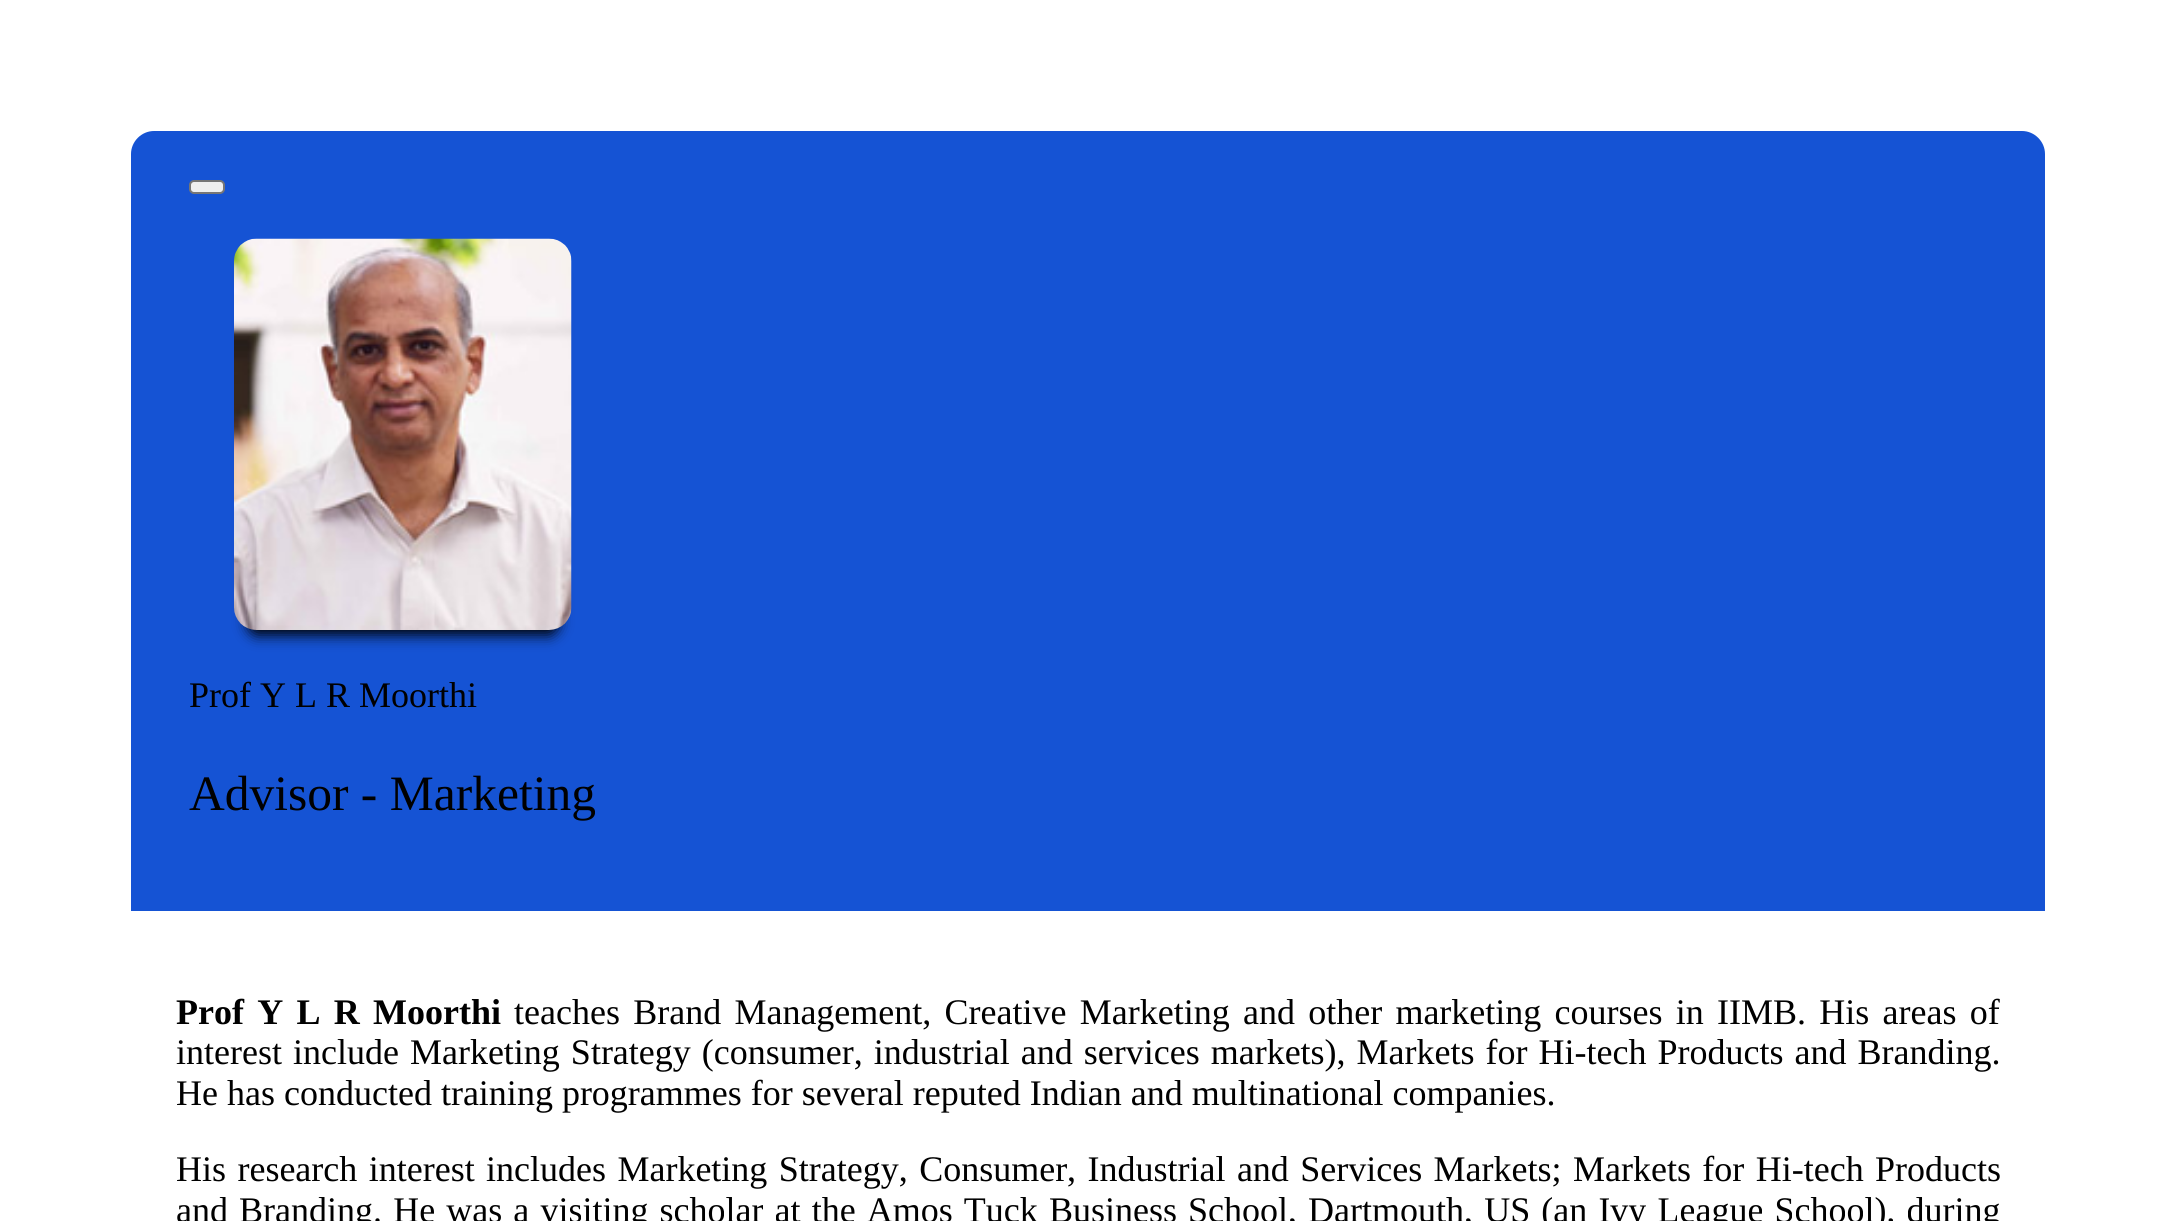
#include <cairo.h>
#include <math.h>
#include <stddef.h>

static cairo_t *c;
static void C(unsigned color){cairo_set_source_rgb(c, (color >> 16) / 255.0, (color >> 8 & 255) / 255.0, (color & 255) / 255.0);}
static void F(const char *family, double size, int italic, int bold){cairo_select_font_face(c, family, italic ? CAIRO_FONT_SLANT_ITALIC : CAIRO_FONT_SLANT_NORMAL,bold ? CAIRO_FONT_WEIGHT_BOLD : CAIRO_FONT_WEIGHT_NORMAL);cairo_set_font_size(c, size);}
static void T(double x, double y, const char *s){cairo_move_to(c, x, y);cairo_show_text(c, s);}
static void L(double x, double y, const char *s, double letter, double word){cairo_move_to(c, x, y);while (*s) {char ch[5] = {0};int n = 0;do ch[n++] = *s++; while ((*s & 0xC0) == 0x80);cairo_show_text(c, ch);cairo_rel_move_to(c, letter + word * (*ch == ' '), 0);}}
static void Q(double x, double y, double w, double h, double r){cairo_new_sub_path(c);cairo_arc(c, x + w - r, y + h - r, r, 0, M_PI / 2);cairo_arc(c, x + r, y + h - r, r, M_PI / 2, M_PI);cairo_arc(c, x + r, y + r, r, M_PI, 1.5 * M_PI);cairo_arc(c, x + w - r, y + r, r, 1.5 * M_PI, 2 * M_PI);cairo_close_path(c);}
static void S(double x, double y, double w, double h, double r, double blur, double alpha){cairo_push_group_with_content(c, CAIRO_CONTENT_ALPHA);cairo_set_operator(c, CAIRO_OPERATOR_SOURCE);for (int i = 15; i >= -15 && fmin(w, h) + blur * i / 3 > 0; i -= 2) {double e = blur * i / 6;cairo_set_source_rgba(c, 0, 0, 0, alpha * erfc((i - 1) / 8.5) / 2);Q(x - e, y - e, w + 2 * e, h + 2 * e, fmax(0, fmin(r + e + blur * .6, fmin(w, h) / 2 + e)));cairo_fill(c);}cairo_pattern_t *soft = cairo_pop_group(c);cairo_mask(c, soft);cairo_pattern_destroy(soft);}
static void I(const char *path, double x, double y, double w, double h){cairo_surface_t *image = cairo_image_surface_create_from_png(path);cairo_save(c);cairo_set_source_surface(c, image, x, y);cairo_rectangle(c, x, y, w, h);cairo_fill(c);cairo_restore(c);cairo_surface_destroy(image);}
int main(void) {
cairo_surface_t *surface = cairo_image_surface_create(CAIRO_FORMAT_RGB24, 2174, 1221);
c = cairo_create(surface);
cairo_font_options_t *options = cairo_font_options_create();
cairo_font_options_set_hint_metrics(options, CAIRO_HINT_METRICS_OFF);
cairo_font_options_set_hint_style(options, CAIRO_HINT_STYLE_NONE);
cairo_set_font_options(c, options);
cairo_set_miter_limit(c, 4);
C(0xffffff);
cairo_paint(c);
C(0x1553d4);
cairo_new_path(c);
cairo_move_to(c,154,131);
cairo_line_to(c,2022,131);
cairo_curve_to(c,2034.5,131,2045,141.5,2045,154);
cairo_line_to(c,2045,911);
cairo_line_to(c,131,911);
cairo_line_to(c,131,154);
cairo_curve_to(c,131,141.5,141.5,131,154,131);
cairo_close_path(c);
cairo_fill(c);
C(0xefefef);
Q(190,181,34,12,4);
cairo_fill_preserve(c);
C(0x767676);
cairo_stroke(c);
C(0x000000);
S(248,270,310,365,9,7,1);
I("1.png",234,238,338,392);
F("Liberation Serif",36,0,0);
C(0x000000);
T(189,707,"Prof Y L R Moorthi");
F("Liberation Serif",49.5,0,0);
T(189,810,"Advisor - Marketing");
F("Liberation Serif",36,0,1);
L(176,1024,"Prof Y L R Moorthi",0,4.25);
F("Liberation Serif",36,0,0);
L(514,1024,"teaches Brand Management, Creative Marketing and other marketing courses in IIMB. His areas of",0,4.25);
L(176,1064,"interest include Marketing Strategy (consumer, industrial and services markets), Markets for Hi-tech Products and Branding.",0,2);
T(176,1105,"He has conducted training programmes for several reputed Indian and multinational companies.");
L(176,1181,"His research interest includes Marketing Strategy, Consumer, Industrial and Services Markets; Markets for Hi-tech Products",0,2.4);
L(176,1222,"and Branding. He was a visiting scholar at the Amos Tuck Business School, Dartmouth, US (an Ivy League School), during",0,2.1);
cairo_surface_write_to_png(surface, "o.png");
cairo_font_options_destroy(options);
cairo_destroy(c);
cairo_surface_destroy(surface);
return 0;
}
